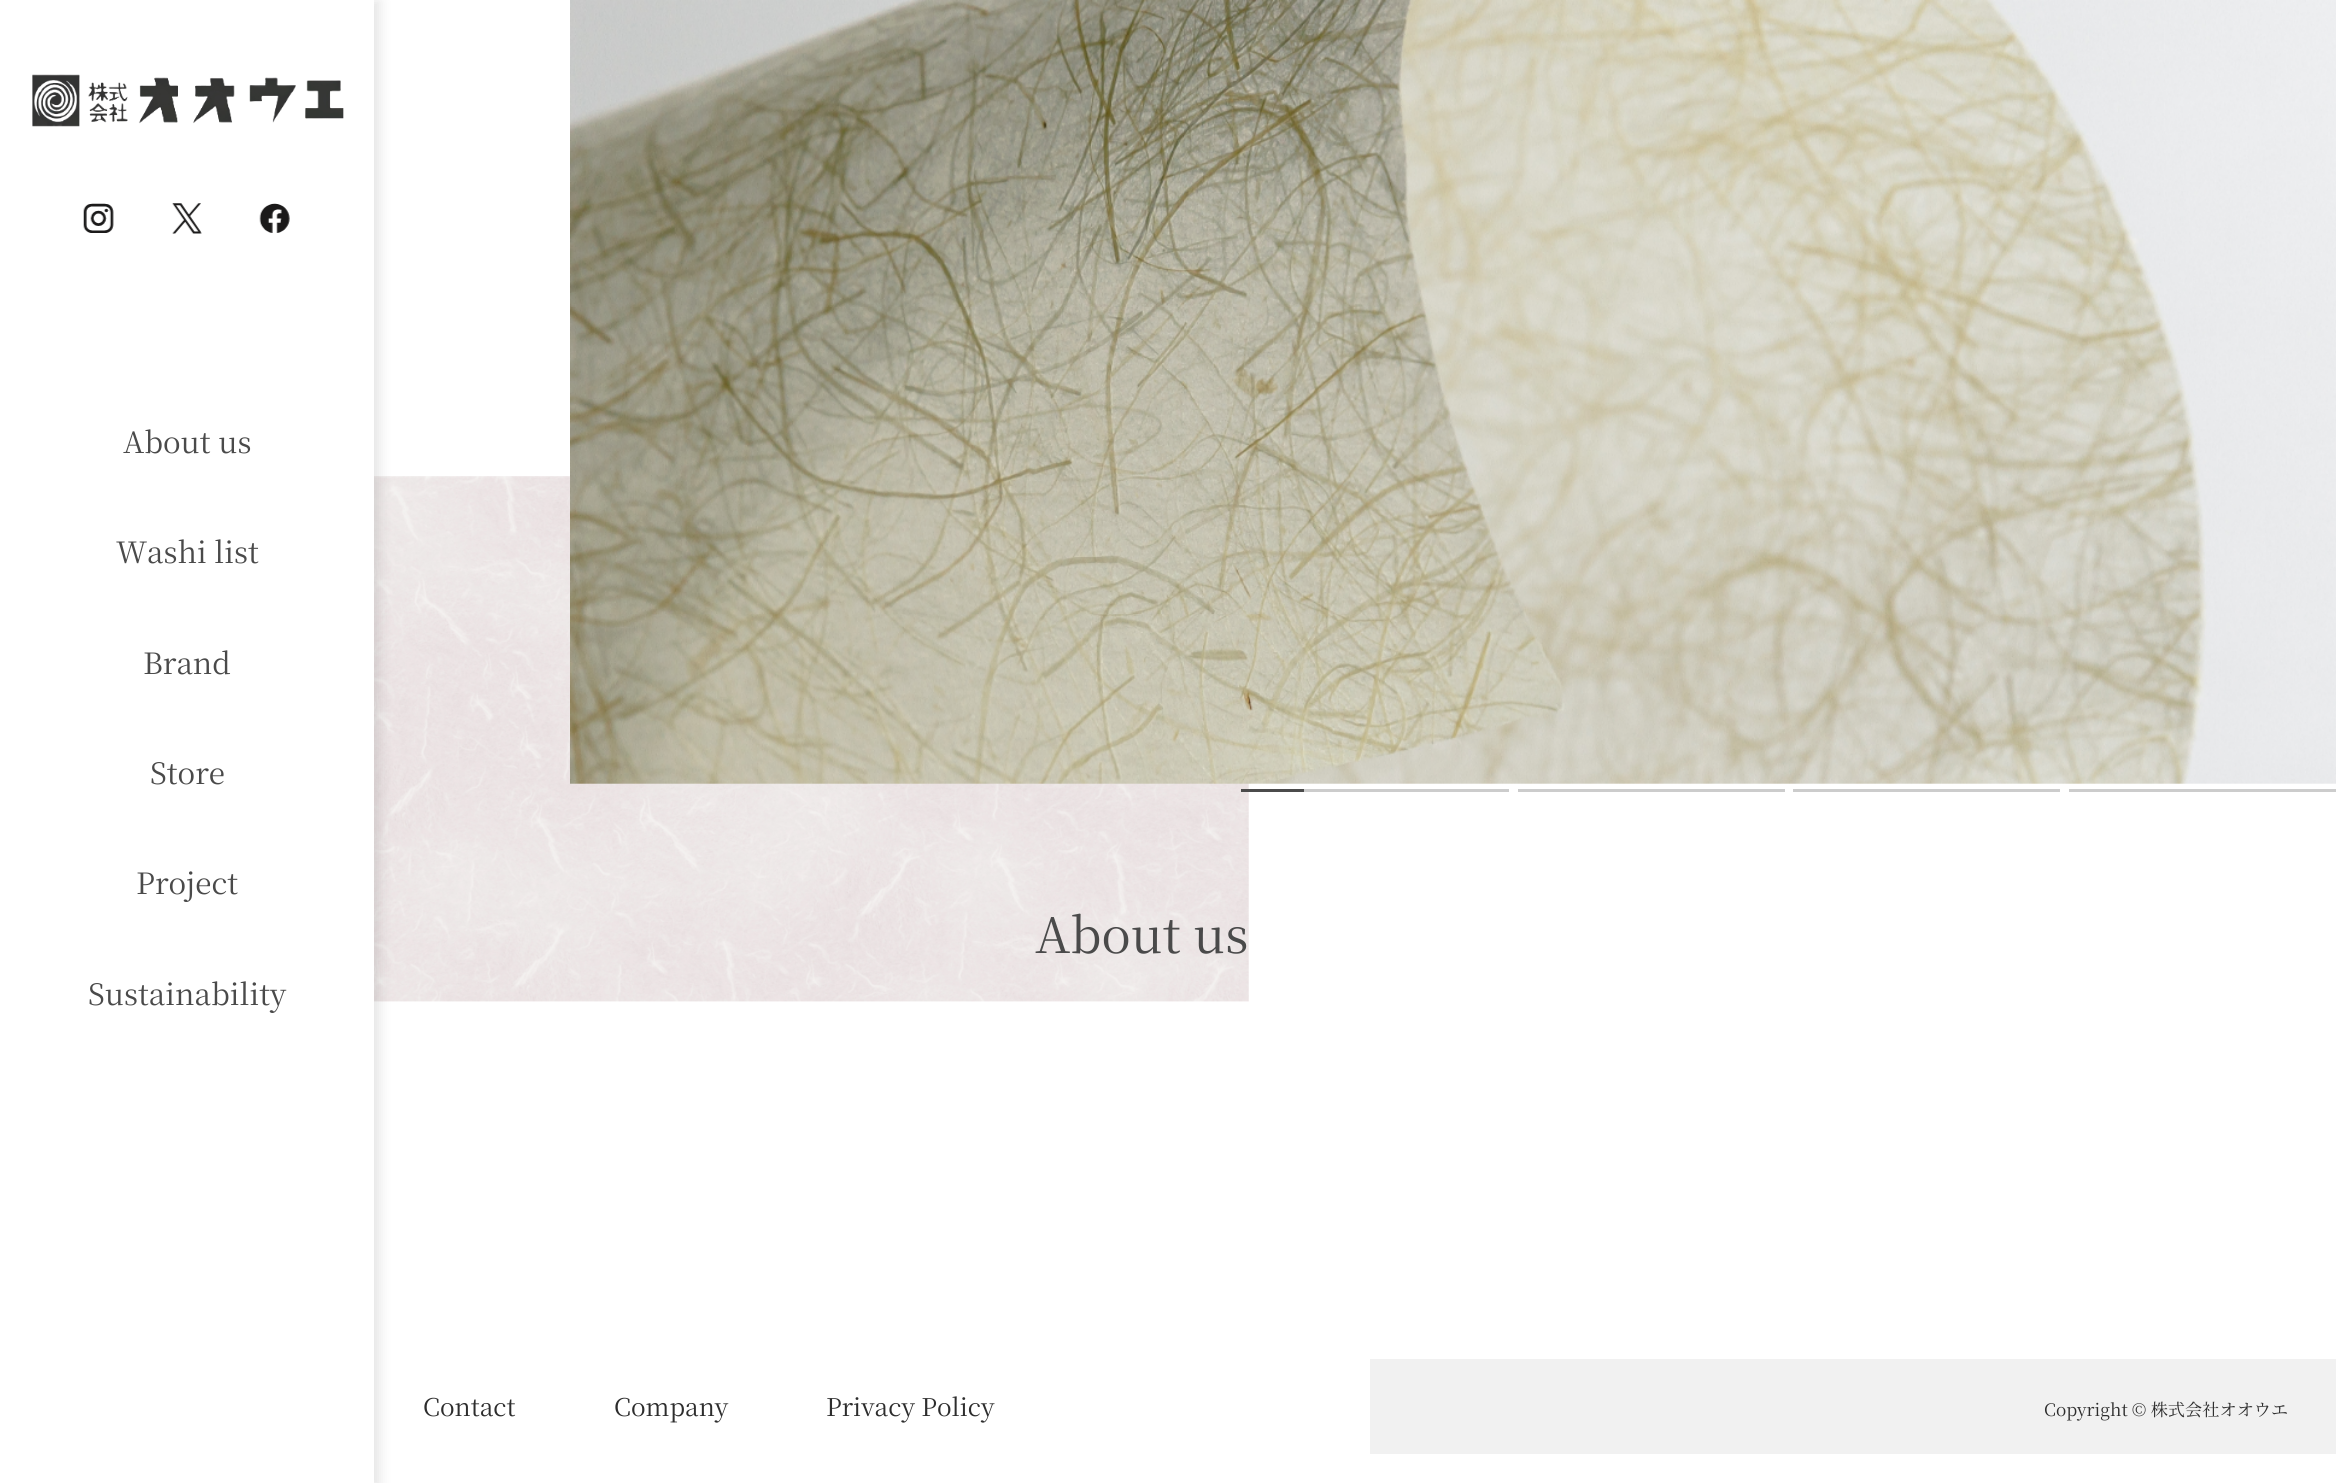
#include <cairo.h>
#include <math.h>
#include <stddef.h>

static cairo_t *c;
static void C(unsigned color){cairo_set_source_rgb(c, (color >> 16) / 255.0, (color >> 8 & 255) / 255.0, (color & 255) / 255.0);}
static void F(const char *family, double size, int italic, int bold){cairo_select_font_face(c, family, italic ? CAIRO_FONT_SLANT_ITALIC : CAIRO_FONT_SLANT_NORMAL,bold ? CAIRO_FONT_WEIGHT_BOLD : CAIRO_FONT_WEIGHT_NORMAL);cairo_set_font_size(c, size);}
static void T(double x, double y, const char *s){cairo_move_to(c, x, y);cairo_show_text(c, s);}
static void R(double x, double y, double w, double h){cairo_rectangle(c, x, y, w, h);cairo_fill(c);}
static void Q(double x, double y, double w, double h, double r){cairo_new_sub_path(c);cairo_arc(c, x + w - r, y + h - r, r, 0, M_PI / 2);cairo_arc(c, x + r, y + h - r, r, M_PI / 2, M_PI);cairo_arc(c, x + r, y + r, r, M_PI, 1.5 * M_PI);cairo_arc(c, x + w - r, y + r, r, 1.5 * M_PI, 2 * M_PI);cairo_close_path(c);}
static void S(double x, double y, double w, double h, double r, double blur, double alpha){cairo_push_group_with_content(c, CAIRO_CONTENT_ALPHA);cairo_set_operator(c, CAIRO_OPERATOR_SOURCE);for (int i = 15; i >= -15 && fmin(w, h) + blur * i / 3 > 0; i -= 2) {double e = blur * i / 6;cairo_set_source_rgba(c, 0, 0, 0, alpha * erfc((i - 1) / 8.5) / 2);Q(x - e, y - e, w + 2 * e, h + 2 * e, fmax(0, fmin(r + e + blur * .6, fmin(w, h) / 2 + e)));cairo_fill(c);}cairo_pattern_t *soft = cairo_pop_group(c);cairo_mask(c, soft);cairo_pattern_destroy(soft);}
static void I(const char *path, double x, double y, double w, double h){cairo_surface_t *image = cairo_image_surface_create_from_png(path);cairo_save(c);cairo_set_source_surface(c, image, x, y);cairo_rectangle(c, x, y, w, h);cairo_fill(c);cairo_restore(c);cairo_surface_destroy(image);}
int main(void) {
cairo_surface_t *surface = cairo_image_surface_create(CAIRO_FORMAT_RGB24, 2336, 1483);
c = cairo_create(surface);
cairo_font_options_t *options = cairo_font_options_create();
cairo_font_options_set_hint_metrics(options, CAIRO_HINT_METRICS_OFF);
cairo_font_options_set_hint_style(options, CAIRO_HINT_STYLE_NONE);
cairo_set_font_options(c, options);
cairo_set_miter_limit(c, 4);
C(0xffffff);
cairo_paint(c);
I("6.png",374,476,875,526);
cairo_save(c);
cairo_set_fill_rule(c,CAIRO_FILL_RULE_EVEN_ODD);
cairo_new_path(c);
cairo_move_to(c,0,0);
cairo_line_to(c,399,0);
cairo_line_to(c,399,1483);
cairo_line_to(c,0,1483);
cairo_close_path(c);
cairo_move_to(c,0,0);
cairo_line_to(c,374,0);
cairo_line_to(c,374,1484);
cairo_line_to(c,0,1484);
cairo_close_path(c);
cairo_clip(c);
C(0x000000);
S(6,1,374,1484,0,6,.1);
cairo_restore(c);
I("1.png",32,74,312,53);
I("2.png",83,203,31,30);
I("3.png",172,203,30,31);
I("4.png",259,203,31,30);
F("Noto Serif JP",29.5,0,0);
C(0x4a4a4a);
T(123,453,"About us");
T(116,563,"Washi list");
T(143,674,"Brand");
T(150,784,"Store");
T(136,894,"Project");
T(88,1005,"Sustainability");
I("5.png",570,0,1766,784);
C(0xcccccc);
R(1304,789,205,3);
C(0x4b4b4b);
R(1241,789,63,3);
C(0xcccccc);
R(1518,789,267,3);
R(1793,789,267,3);
R(2069,789,267,3);
F("Noto Serif JP",49,0,0);
C(0x4a4a4a);
T(1035,953,"About us");
F("Noto Serif JP",24.5,0,0);
C(0x2d2d2d);
T(423,1416,"Contact");
T(614,1416,"Company");
T(826,1416,"Privacy Policy");
C(0xf1f1f1);
R(1370,1359,966,95);
F("Noto Serif JP",17.2,0,0);
C(0x2d2d2d);
T(2044,1416,"Copyright © 株式会社オオウエ");
cairo_surface_write_to_png(surface, "o.png");
cairo_font_options_destroy(options);
cairo_destroy(c);
cairo_surface_destroy(surface);
return 0;
}
